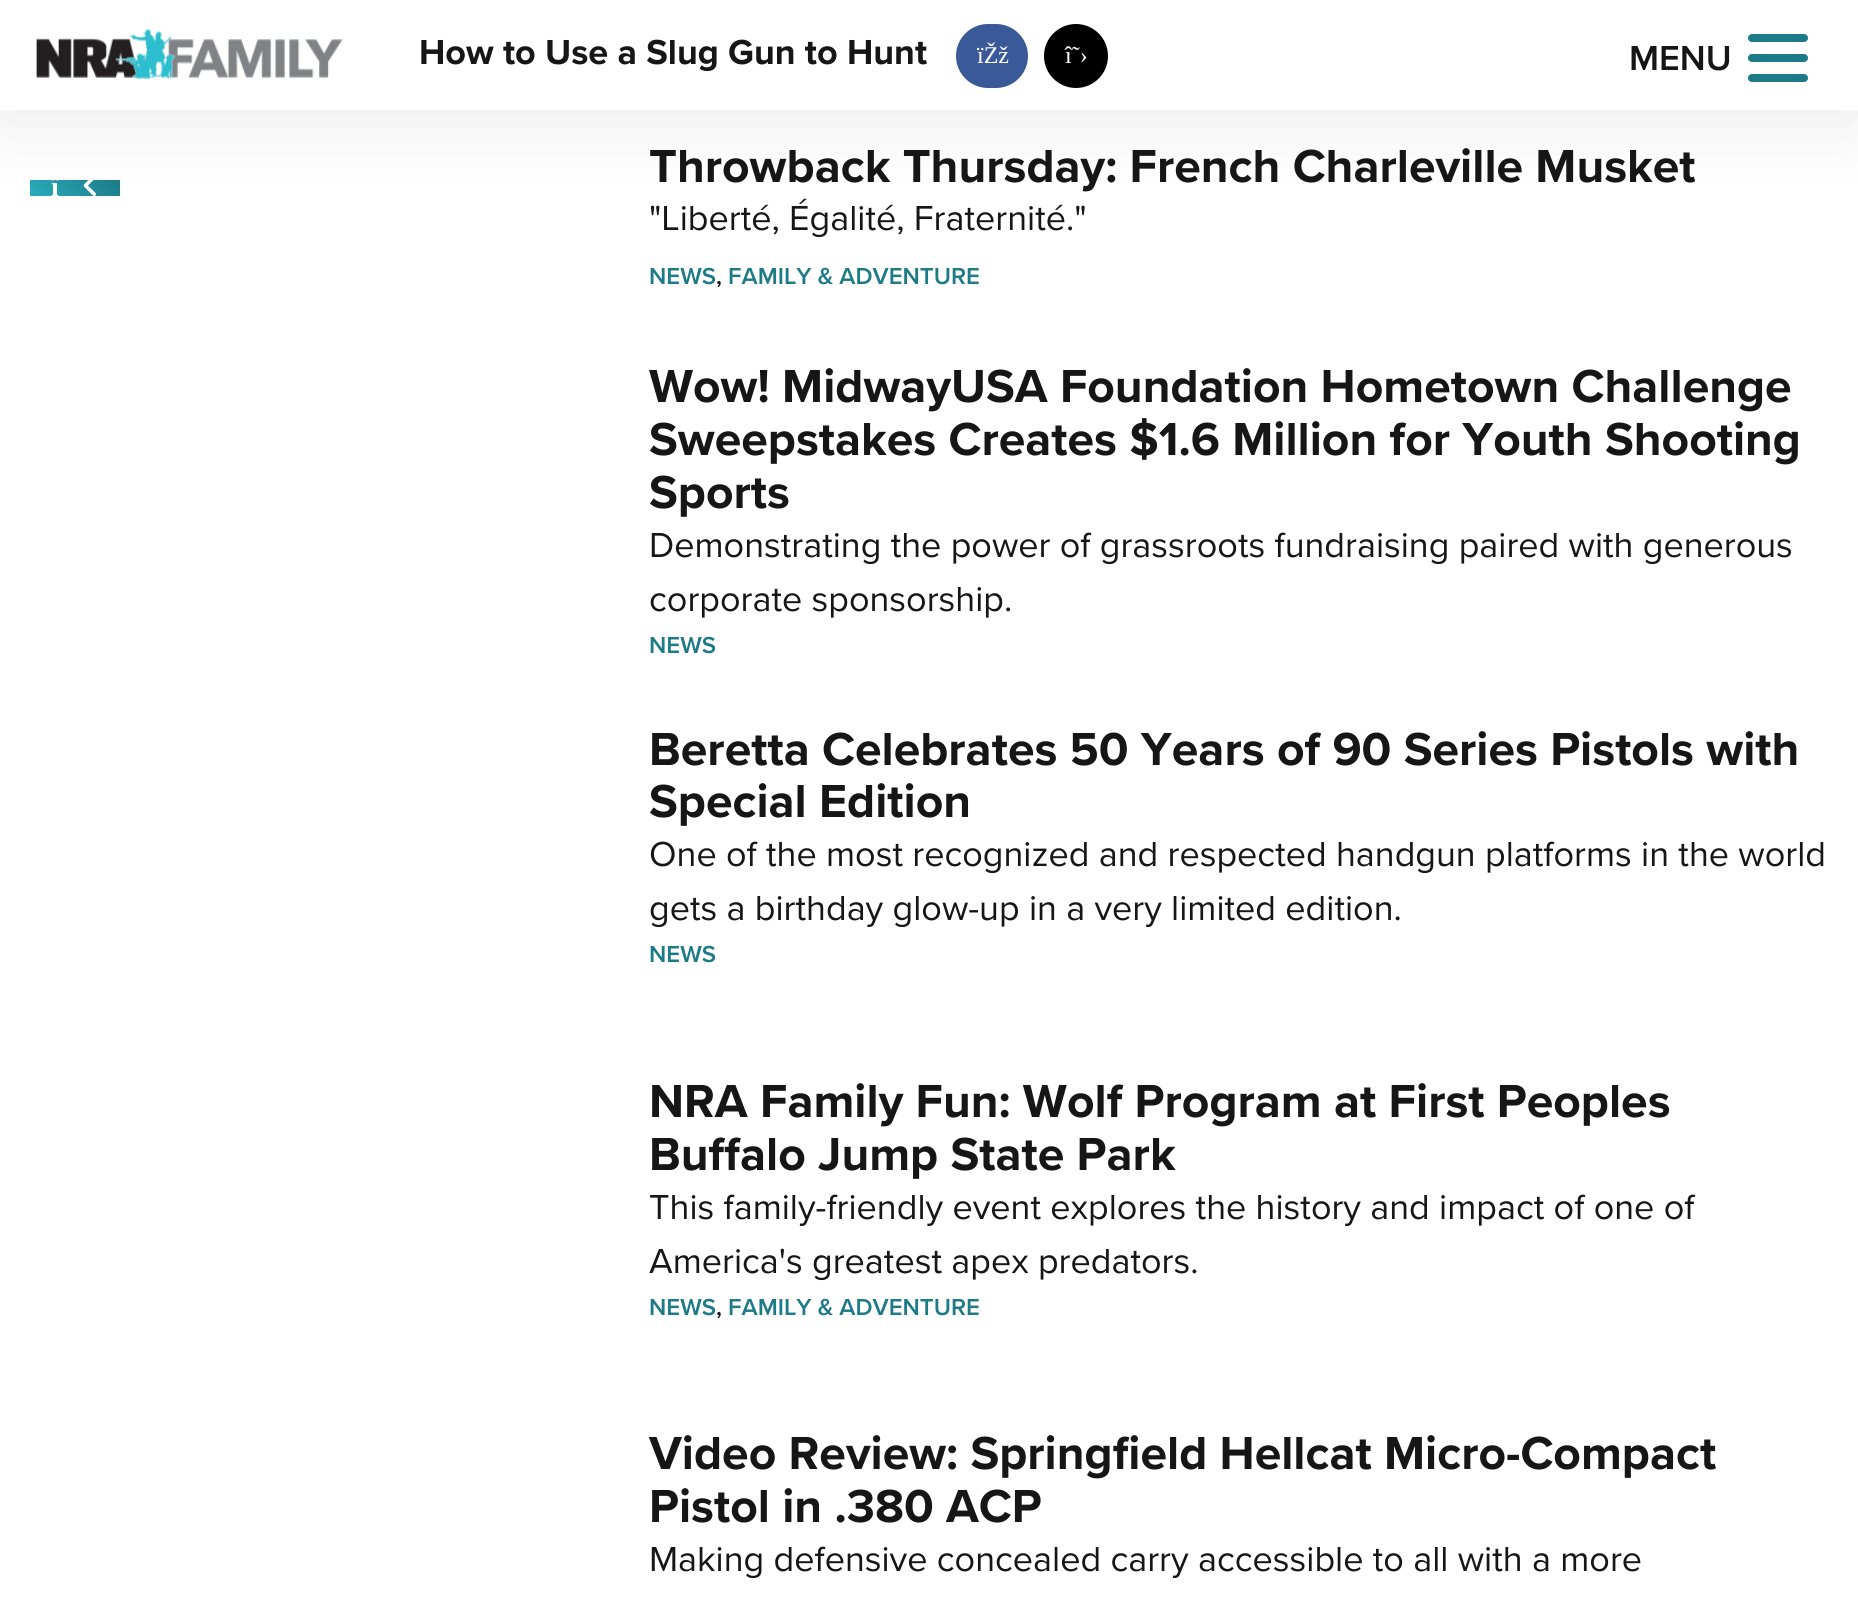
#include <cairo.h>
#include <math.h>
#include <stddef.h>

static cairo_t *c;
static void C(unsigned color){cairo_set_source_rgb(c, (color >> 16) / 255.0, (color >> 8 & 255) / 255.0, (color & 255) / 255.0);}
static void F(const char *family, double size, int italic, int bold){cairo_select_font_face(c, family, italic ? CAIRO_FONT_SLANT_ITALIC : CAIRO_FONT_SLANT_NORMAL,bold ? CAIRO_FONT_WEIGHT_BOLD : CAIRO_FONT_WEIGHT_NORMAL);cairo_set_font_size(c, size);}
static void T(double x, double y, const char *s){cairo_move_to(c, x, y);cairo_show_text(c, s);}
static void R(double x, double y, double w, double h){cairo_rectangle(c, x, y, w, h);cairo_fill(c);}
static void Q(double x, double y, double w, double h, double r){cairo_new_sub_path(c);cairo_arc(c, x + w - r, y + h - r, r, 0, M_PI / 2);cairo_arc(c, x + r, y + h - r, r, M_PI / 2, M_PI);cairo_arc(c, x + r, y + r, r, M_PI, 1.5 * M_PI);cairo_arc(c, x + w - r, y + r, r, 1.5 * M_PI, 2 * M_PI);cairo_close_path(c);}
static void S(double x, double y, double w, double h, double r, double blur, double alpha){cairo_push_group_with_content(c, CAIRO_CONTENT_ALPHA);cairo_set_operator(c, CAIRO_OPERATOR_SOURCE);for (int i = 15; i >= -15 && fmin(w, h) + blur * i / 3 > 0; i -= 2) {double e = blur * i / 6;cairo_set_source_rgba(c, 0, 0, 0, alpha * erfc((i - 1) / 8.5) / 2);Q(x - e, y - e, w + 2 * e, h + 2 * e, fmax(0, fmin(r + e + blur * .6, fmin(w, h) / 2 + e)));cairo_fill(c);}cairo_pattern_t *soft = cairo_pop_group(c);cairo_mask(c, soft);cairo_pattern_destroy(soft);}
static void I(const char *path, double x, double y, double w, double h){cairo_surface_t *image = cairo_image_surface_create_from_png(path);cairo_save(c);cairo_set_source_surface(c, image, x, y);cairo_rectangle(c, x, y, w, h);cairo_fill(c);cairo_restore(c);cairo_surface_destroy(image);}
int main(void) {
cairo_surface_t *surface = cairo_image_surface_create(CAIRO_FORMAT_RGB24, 1858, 1614);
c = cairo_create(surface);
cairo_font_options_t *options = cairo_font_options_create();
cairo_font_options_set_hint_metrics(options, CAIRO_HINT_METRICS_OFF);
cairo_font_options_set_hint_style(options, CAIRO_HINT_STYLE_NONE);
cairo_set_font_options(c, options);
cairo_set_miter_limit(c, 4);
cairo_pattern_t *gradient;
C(0xffffff);
cairo_paint(c);
gradient = cairo_pattern_create_linear(102,162,49,215);
cairo_pattern_add_color_stop_rgba(gradient,0,0.114,0.478,0.529,1);
cairo_pattern_add_color_stop_rgba(gradient,1,0.161,0.678,0.737,1);
cairo_set_source(c,gradient);
cairo_pattern_destroy(gradient);
R(30,180,90,16);
I("2.png",83,180,13,16);
C(0x000000);
S(0,12,1858,110,0,40,.08);
C(0xffffff);
R(0,0,1858,110);
I("1.png",36,29,307,51);
F("Proxima Nova",36,0,1);
C(0x161616);
T(419,64,"How to Use a Slug Gun to Hunt");
C(0x3b5998);
Q(956,24,72,64,32);
cairo_fill(c);
F("Liberation Serif",24,0,0);
C(0xffffff);
T(977,63,"ïŽž");
C(0x000000);
cairo_new_path(c);
cairo_arc(c,1076,56,32,0,2 * M_PI);
cairo_fill(c);
C(0xffffff);
T(1065,63,"î˜›");
F("Proxima Nova SemiBold",36,0,0);
C(0x161616);
T(1629,70,"MENU");
C(0x1d7a87);
Q(1748,54,60,8,4);
cairo_fill(c);
Q(1748,34,60,8,4);
cairo_fill(c);
Q(1748,74,60,8,4);
cairo_fill(c);
F("Liberation Serif",28,0,1);
C(0xffffff);
T(51,196,"ï");
F("Proxima Nova",48,0,1);
C(0x161616);
T(649,182,"Throwback Thursday: French Charleville Musket");
F("Proxima Nova",36,0,0);
T(649,230,"\"Liberté, Égalité, Fraternité.\"");
F("Proxima Nova SemiBold",24,0,0);
C(0x1d7a87);
T(649,284,"NEWS");
C(0x161616);
T(716,284,",");
C(0x1d7a87);
T(728,284,"FAMILY & ADVENTURE");
F("Proxima Nova",48,0,1);
C(0x161616);
T(649,402,"Wow! MidwayUSA Foundation Hometown Challenge");
T(649,455,"Sweepstakes Creates $1.6 Million for Youth Shooting");
T(649,508,"Sports");
F("Proxima Nova",36,0,0);
T(649,557,"Demonstrating the power of grassroots fundraising paired with generous");
T(649,611,"corporate sponsorship.");
F("Proxima Nova SemiBold",24,0,0);
C(0x1d7a87);
T(649,653,"NEWS");
F("Proxima Nova",48,0,1);
C(0x161616);
T(649,765,"Beretta Celebrates 50 Years of 90 Series Pistols with");
T(649,817,"Special Edition");
F("Proxima Nova",36,0,0);
T(649,866,"One of the most recognized and respected handgun platforms in the world");
T(649,920,"gets a birthday glow-up in a very limited edition.");
F("Proxima Nova SemiBold",24,0,0);
C(0x1d7a87);
T(649,962,"NEWS");
F("Proxima Nova",48,0,1);
C(0x161616);
T(649,1117,"NRA Family Fun: Wolf Program at First Peoples");
T(649,1170,"Buffalo Jump State Park");
F("Proxima Nova",36,0,0);
T(649,1219,"This family-friendly event explores the history and impact of one of");
T(649,1273,"America's greatest apex predators.");
F("Proxima Nova SemiBold",24,0,0);
C(0x1d7a87);
T(649,1315,"NEWS");
C(0x161616);
T(716,1315,",");
C(0x1d7a87);
T(728,1315,"FAMILY & ADVENTURE");
F("Proxima Nova",48,0,1);
C(0x161616);
T(649,1469,"Video Review: Springfield Hellcat Micro-Compact");
T(649,1522,"Pistol in .380 ACP");
F("Proxima Nova",36,0,0);
T(649,1571,"Making defensive concealed carry accessible to all with a more");
cairo_surface_write_to_png(surface, "o.png");
cairo_font_options_destroy(options);
cairo_destroy(c);
cairo_surface_destroy(surface);
return 0;
}
